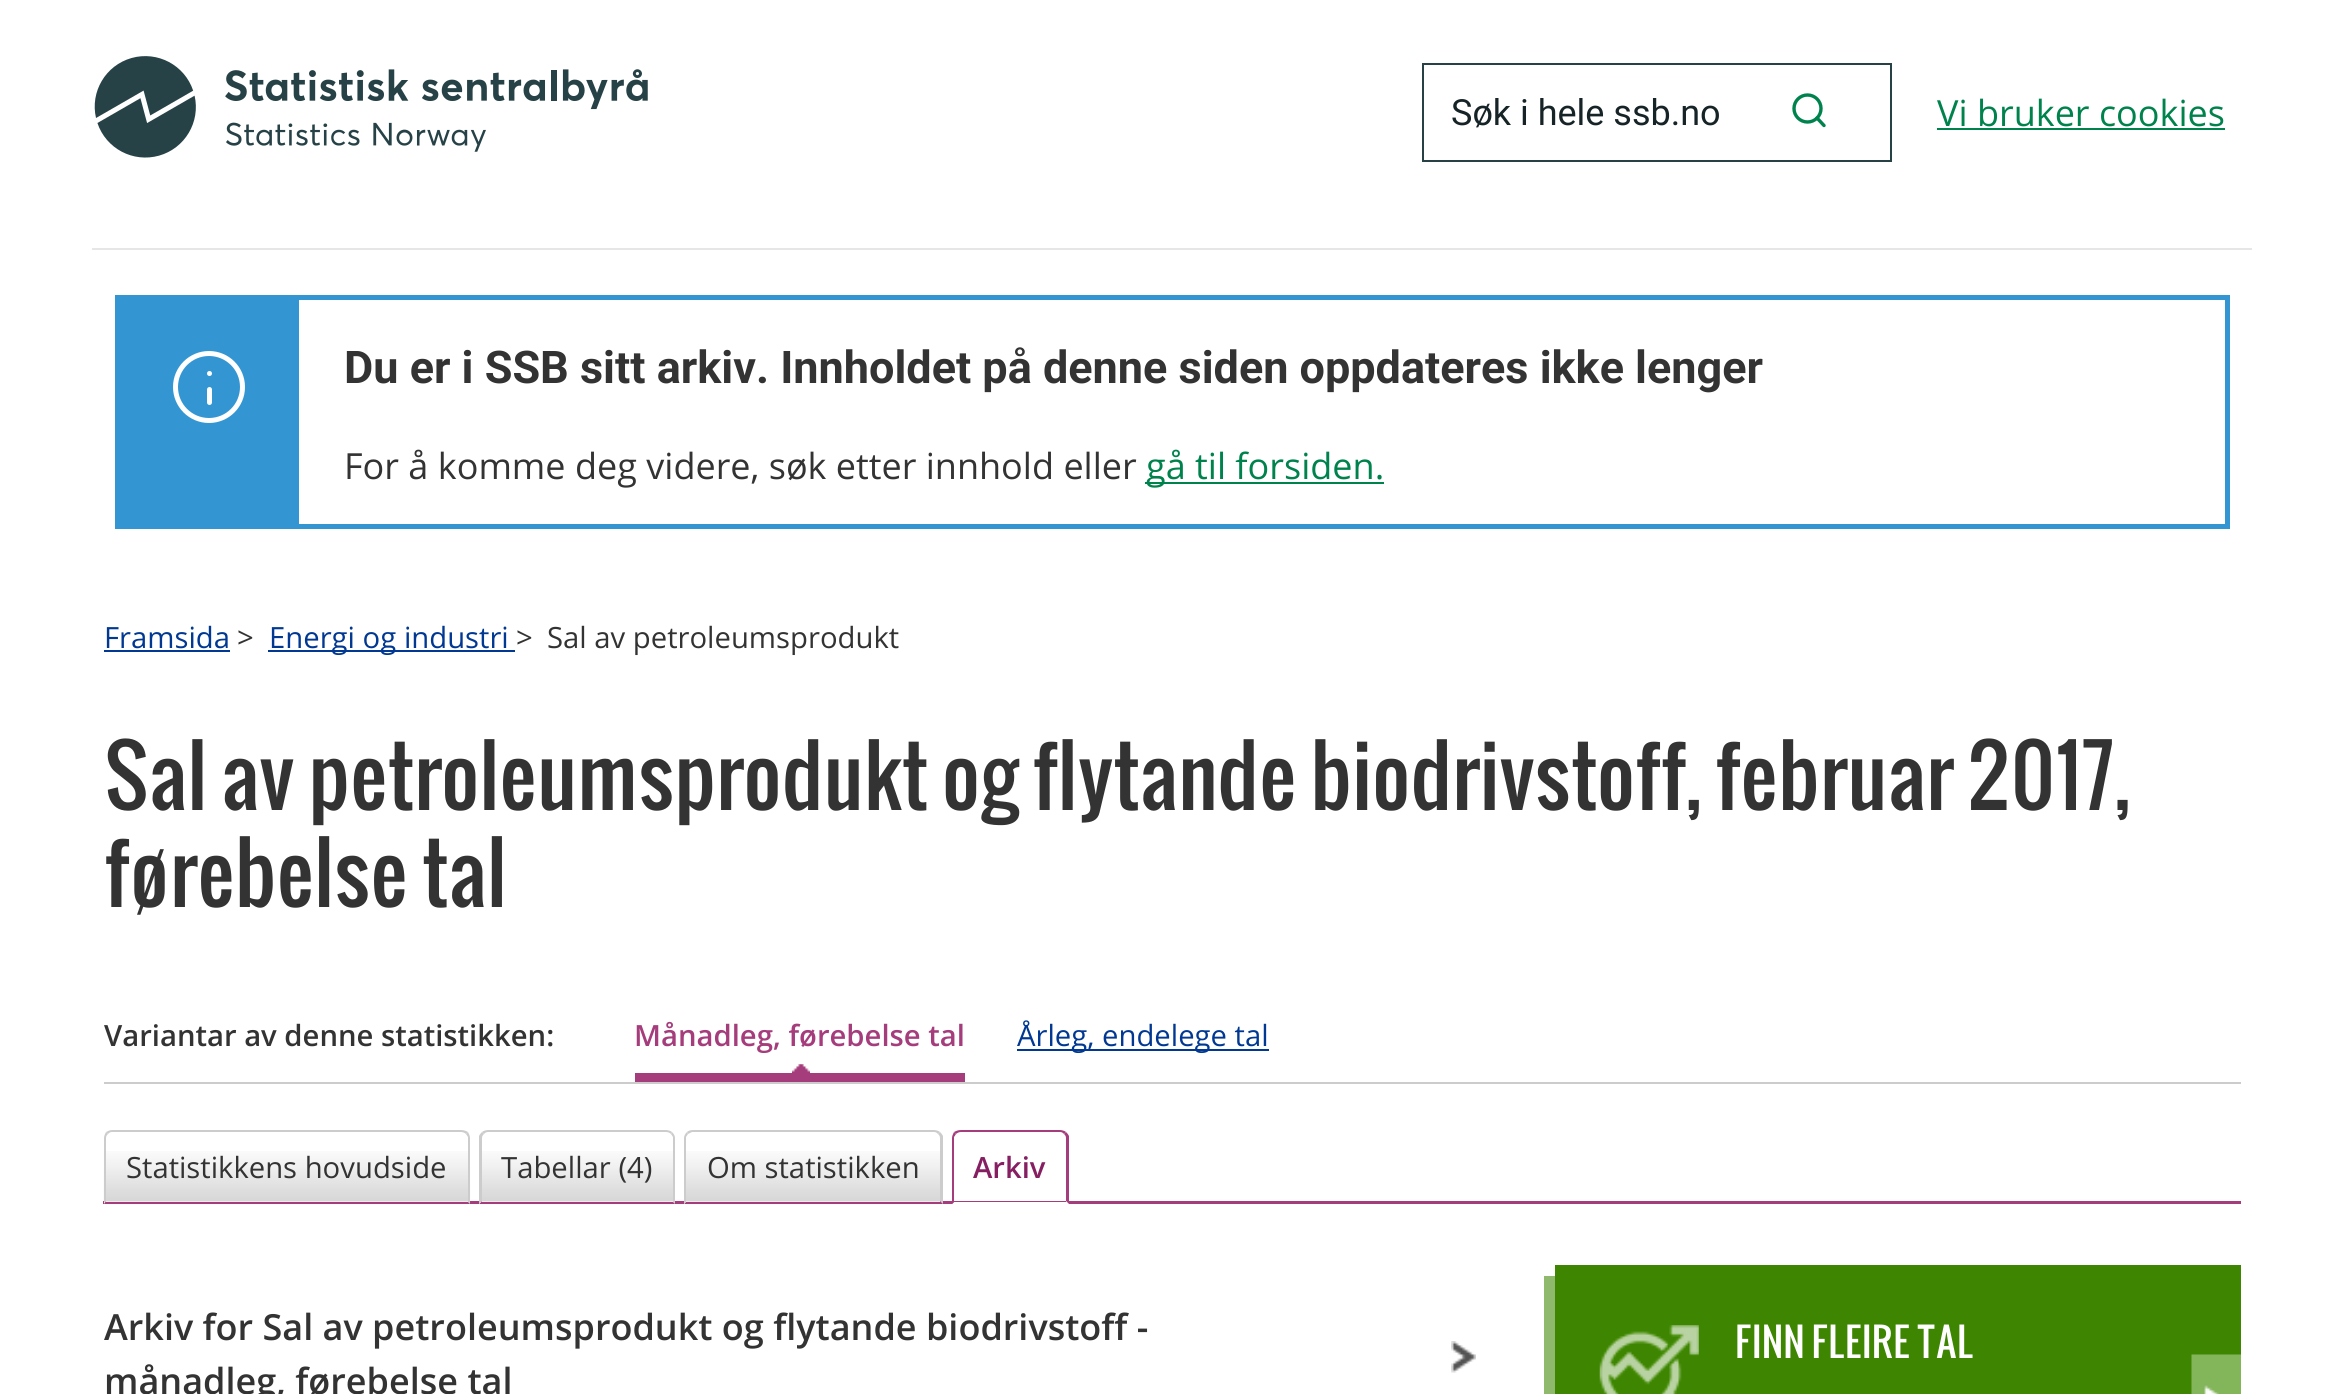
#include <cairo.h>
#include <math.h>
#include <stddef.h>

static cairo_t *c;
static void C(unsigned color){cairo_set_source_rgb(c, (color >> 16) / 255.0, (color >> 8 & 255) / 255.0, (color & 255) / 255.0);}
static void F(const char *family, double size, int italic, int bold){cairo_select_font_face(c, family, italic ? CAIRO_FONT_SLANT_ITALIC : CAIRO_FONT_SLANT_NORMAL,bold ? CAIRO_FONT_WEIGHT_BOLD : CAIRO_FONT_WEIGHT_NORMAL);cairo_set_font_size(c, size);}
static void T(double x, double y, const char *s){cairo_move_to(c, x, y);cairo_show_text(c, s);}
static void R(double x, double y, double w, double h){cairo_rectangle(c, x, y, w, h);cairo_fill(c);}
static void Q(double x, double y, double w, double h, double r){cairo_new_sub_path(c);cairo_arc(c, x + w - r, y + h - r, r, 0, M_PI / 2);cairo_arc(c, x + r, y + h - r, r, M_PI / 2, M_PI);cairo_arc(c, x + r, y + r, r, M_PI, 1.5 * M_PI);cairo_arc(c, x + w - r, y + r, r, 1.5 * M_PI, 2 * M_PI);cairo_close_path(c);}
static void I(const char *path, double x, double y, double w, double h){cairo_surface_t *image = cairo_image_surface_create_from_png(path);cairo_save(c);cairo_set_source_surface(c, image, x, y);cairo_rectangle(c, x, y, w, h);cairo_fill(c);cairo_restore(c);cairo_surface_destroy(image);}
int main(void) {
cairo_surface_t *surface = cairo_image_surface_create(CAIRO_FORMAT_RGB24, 2343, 1394);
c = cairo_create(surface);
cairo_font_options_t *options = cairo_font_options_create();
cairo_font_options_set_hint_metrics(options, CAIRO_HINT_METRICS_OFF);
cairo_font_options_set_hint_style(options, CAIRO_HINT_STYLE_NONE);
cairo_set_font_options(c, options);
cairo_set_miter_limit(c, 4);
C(0xffffff);
cairo_paint(c);
I("1.png",94,56,554,102);
cairo_rectangle(c,1423,64,468,97);
C(0x274247);
cairo_stroke(c);
F("Roboto",36,0,0);
C(0x162327);
T(1451,125,"Søk i hele ssb.no");
cairo_new_path(c);
cairo_arc(c,1807.5,108.5,13.5,0,2 * M_PI);
C(0x00824d);
cairo_set_line_width(c,3.4);
cairo_stroke(c);
cairo_new_path(c);
cairo_move_to(c,1824,125.5);
cairo_line_to(c,1817,118);
cairo_set_line_cap(c,CAIRO_LINE_CAP_ROUND);
cairo_set_line_join(c,CAIRO_LINE_JOIN_ROUND);
cairo_stroke(c);
F("Open Sans",36,0,0);
T(1937,126,"Vi bruker cookies");
R(1937,128,288,2);
C(0xe6e6e6);
R(92,248,2160,2);
cairo_rectangle(c,117.5,297.5,2110,229);
C(0x3396d2);
cairo_set_line_width(c,5);
cairo_set_line_cap(c,CAIRO_LINE_CAP_BUTT);
cairo_set_line_join(c,CAIRO_LINE_JOIN_MITER);
cairo_stroke(c);
R(120,300,179,224);
cairo_arc(c,209,387,33.5,0,2 * M_PI);
C(0xffffff);
cairo_stroke(c);
cairo_arc(c,209.5,373.5,2.5,0,2 * M_PI);
cairo_fill(c);
Q(207,387,5,18,2.5);
cairo_fill(c);
F("Roboto",45,0,1);
C(0x333333);
T(344,383,"Du er i SSB sitt arkiv. Innholdet på denne siden oppdateres ikke lenger");
F("Open Sans",36,0,0);
T(344,479,"For å komme deg videre, søk etter innhold eller");
C(0x00824d);
R(1145,482,239,2);
T(1146,479,"gå til forsiden.");
F("Open Sans",29.25,0,0);
C(0x003892);
T(104,648,"Framsida");
R(104,650,126,2);
C(0x333333);
T(237,648,">");
C(0x003892);
R(268,650,247,2);
T(269,648,"Energi og industri");
C(0x333333);
T(516,648,">");
T(547,648,"Sal av petroleumsprodukt");
F("Oswald",81,0,0);
T(104,810,"Sal av petroleumsprodukt og flytande biodrivstoff,");
T(1715,810,"februar 2017,");
T(104,907,"førebelse tal");
C(0xcccccc);
R(104,1082,2137,2);
F("Open Sans SemiBold",29.25,0,0);
C(0x333333);
T(104,1046,"Variantar av denne statistikken:");
I("2.png",792,1064,18,9);
C(0xa53d7c);
R(635,1073,330,9);
T(634,1046,"Månadleg, førebelse tal");
C(0x003892);
R(1017,1049,252,2);
F("Open Sans",29.25,0,0);
T(1017,1046,"Årleg, endelege tal");
C(0xa53d7c);
R(103,1201,2138,3);
C(0xffffff);
cairo_new_path(c);
cairo_move_to(c,113,1130);
cairo_line_to(c,461,1130);
cairo_curve_to(c,466,1130,470,1134,470,1139);
cairo_line_to(c,470,1204);
cairo_line_to(c,104,1204);
cairo_line_to(c,104,1139);
cairo_curve_to(c,104,1134,108,1130,113,1130);
cairo_close_path(c);
cairo_fill(c);
I("3.png",103,1151,368,51);
C(0xcccccc);
cairo_new_path(c);
cairo_move_to(c,112,1130);
cairo_curve_to(c,110,1130,108,1131,106,1132);
cairo_line_to(c,108,1134);
cairo_curve_to(c,109,1133,110,1132,112,1132);
cairo_line_to(c,461,1132);
cairo_curve_to(c,463,1132,465,1133,466,1134);
cairo_line_to(c,468,1132);
cairo_curve_to(c,466,1131,464,1130,461,1130);
cairo_close_path(c);
cairo_fill(c);
cairo_new_path(c);
cairo_move_to(c,470,1204);
cairo_line_to(c,470,1138);
cairo_curve_to(c,470,1136,469,1134,468,1132);
cairo_line_to(c,466,1134);
cairo_line_to(c,468,1137);
cairo_line_to(c,468,1202);
cairo_close_path(c);
cairo_fill(c);
C(0xa53d7c);
cairo_new_path(c);
cairo_move_to(c,104,1204);
cairo_line_to(c,106,1201);
cairo_line_to(c,106,1202);
cairo_line_to(c,468,1202);
cairo_line_to(c,470,1204);
cairo_close_path(c);
cairo_fill(c);
C(0xcccccc);
cairo_new_path(c);
cairo_move_to(c,106,1132);
cairo_curve_to(c,105,1134,104,1136,104,1138);
cairo_line_to(c,104,1203);
cairo_line_to(c,106,1201);
cairo_line_to(c,106,1138);
cairo_curve_to(c,106,1136,107,1135,108,1134);
cairo_close_path(c);
cairo_fill(c);
C(0x333333);
T(126,1178,"Statistikkens hovudside");
C(0xffffff);
cairo_new_path(c);
cairo_move_to(c,488,1130);
cairo_line_to(c,666,1130);
cairo_curve_to(c,671,1130,675,1134,675,1139);
cairo_line_to(c,675,1204);
cairo_line_to(c,479,1204);
cairo_line_to(c,479,1139);
cairo_curve_to(c,479,1134,483,1130,488,1130);
cairo_close_path(c);
cairo_fill(c);
I("4.png",481,1151,192,51);
C(0xcccccc);
cairo_new_path(c);
cairo_move_to(c,488,1130);
cairo_curve_to(c,486,1130,483,1131,482,1132);
cairo_line_to(c,484,1134);
cairo_curve_to(c,485,1133,486,1132,488,1132);
cairo_line_to(c,666,1132);
cairo_curve_to(c,668,1132,670,1133,671,1134);
cairo_line_to(c,672,1132);
cairo_curve_to(c,671,1131,668,1130,666,1130);
cairo_close_path(c);
cairo_fill(c);
cairo_new_path(c);
cairo_move_to(c,672,1132);
cairo_curve_to(c,674,1134,675,1136,675,1138);
cairo_line_to(c,675,1204);
cairo_line_to(c,673,1202);
cairo_line_to(c,673,1137);
cairo_line_to(c,671,1134);
cairo_close_path(c);
cairo_fill(c);
C(0xa53d7c);
cairo_new_path(c);
cairo_move_to(c,675,1204);
cairo_line_to(c,673,1202);
cairo_line_to(c,482,1202);
cairo_line_to(c,482,1201);
cairo_line_to(c,479,1204);
cairo_close_path(c);
cairo_fill(c);
C(0xcccccc);
cairo_new_path(c);
cairo_move_to(c,479,1204);
cairo_line_to(c,482,1201);
cairo_line_to(c,482,1138);
cairo_curve_to(c,482,1136,483,1135,484,1134);
cairo_line_to(c,482,1132);
cairo_curve_to(c,481,1133,480,1134,479,1136);
cairo_close_path(c);
cairo_fill(c);
C(0x333333);
T(501,1178,"Tabellar (4)");
C(0xffffff);
cairo_new_path(c);
cairo_move_to(c,693,1130);
cairo_line_to(c,934,1130);
cairo_curve_to(c,939,1130,943,1134,943,1139);
cairo_line_to(c,943,1204);
cairo_line_to(c,684,1204);
cairo_line_to(c,684,1139);
cairo_curve_to(c,684,1134,688,1130,693,1130);
cairo_close_path(c);
cairo_fill(c);
I("5.png",686,1151,255,51);
C(0xcccccc);
cairo_new_path(c);
cairo_move_to(c,693,1130);
cairo_curve_to(c,690,1130,688,1131,687,1132);
cairo_line_to(c,688,1134);
cairo_line_to(c,692,1132);
cairo_line_to(c,934,1132);
cairo_curve_to(c,936,1132,937,1133,938,1134);
cairo_line_to(c,940,1132);
cairo_curve_to(c,939,1131,936,1130,934,1130);
cairo_close_path(c);
cairo_fill(c);
cairo_new_path(c);
cairo_move_to(c,940,1132);
cairo_curve_to(c,941,1133,942,1134,943,1136);
cairo_line_to(c,943,1204);
cairo_line_to(c,940,1201);
cairo_line_to(c,940,1138);
cairo_curve_to(c,940,1136,939,1135,938,1134);
cairo_close_path(c);
cairo_fill(c);
C(0xa53d7c);
cairo_new_path(c);
cairo_move_to(c,943,1204);
cairo_line_to(c,940,1201);
cairo_line_to(c,940,1202);
cairo_line_to(c,686,1202);
cairo_line_to(c,684,1204);
cairo_close_path(c);
cairo_fill(c);
C(0xcccccc);
cairo_new_path(c);
cairo_move_to(c,684,1204);
cairo_line_to(c,686,1202);
cairo_line_to(c,686,1137);
cairo_line_to(c,688,1134);
cairo_line_to(c,687,1132);
cairo_curve_to(c,685,1134,684,1136,684,1138);
cairo_close_path(c);
cairo_fill(c);
C(0x333333);
T(707,1178,"Om statistikken");
C(0xa53d7c);
cairo_new_path(c);
cairo_move_to(c,961,1130);
cairo_curve_to(c,958,1130,956,1131,954,1132);
cairo_line_to(c,956,1134);
cairo_curve_to(c,957,1133,959,1132,961,1132);
cairo_line_to(c,1060,1132);
cairo_curve_to(c,1062,1132,1063,1133,1064,1134);
cairo_line_to(c,1066,1132);
cairo_curve_to(c,1065,1131,1062,1130,1060,1130);
cairo_close_path(c);
cairo_fill(c);
cairo_new_path(c);
cairo_move_to(c,1066,1132);
cairo_curve_to(c,1067,1133,1068,1134,1069,1136);
cairo_line_to(c,1069,1204);
cairo_line_to(c,1066,1201);
cairo_line_to(c,1066,1138);
cairo_curve_to(c,1066,1136,1065,1135,1064,1134);
cairo_close_path(c);
cairo_fill(c);
C(0xffffff);
cairo_new_path(c);
cairo_move_to(c,1069,1204);
cairo_line_to(c,952,1204);
cairo_line_to(c,954,1202);
cairo_line_to(c,1066,1202);
cairo_line_to(c,1066,1201);
cairo_close_path(c);
cairo_fill(c);
C(0xa53d7c);
cairo_new_path(c);
cairo_move_to(c,954,1132);
cairo_curve_to(c,953,1134,952,1136,952,1138);
cairo_line_to(c,952,1204);
cairo_line_to(c,954,1202);
cairo_line_to(c,954,1137);
cairo_line_to(c,956,1134);
cairo_close_path(c);
cairo_fill(c);
F("Open Sans SemiBold",29.25,0,0);
C(0x861f62);
T(973,1178,"Arkiv");
I("6.png",1451,1341,25,32);
F("Open Sans SemiBold",36,0,0);
C(0x333333);
T(104,1340,"Arkiv for Sal av petroleumsprodukt og flytande biodrivstoff -");
T(104,1394,"månadleg, førebelse tal");
C(0x3e8601);
R(1555,1265,686,129);
I("7.png",1599,1325,642,69);
C(0x8fb96c);
R(1544,1276,11,118);
F("Oswald",38.25,0,0);
C(0xffffff);
T(1735,1358,"FINN FLEIRE TAL");
cairo_surface_write_to_png(surface, "o.png");
cairo_font_options_destroy(options);
cairo_destroy(c);
cairo_surface_destroy(surface);
return 0;
}
